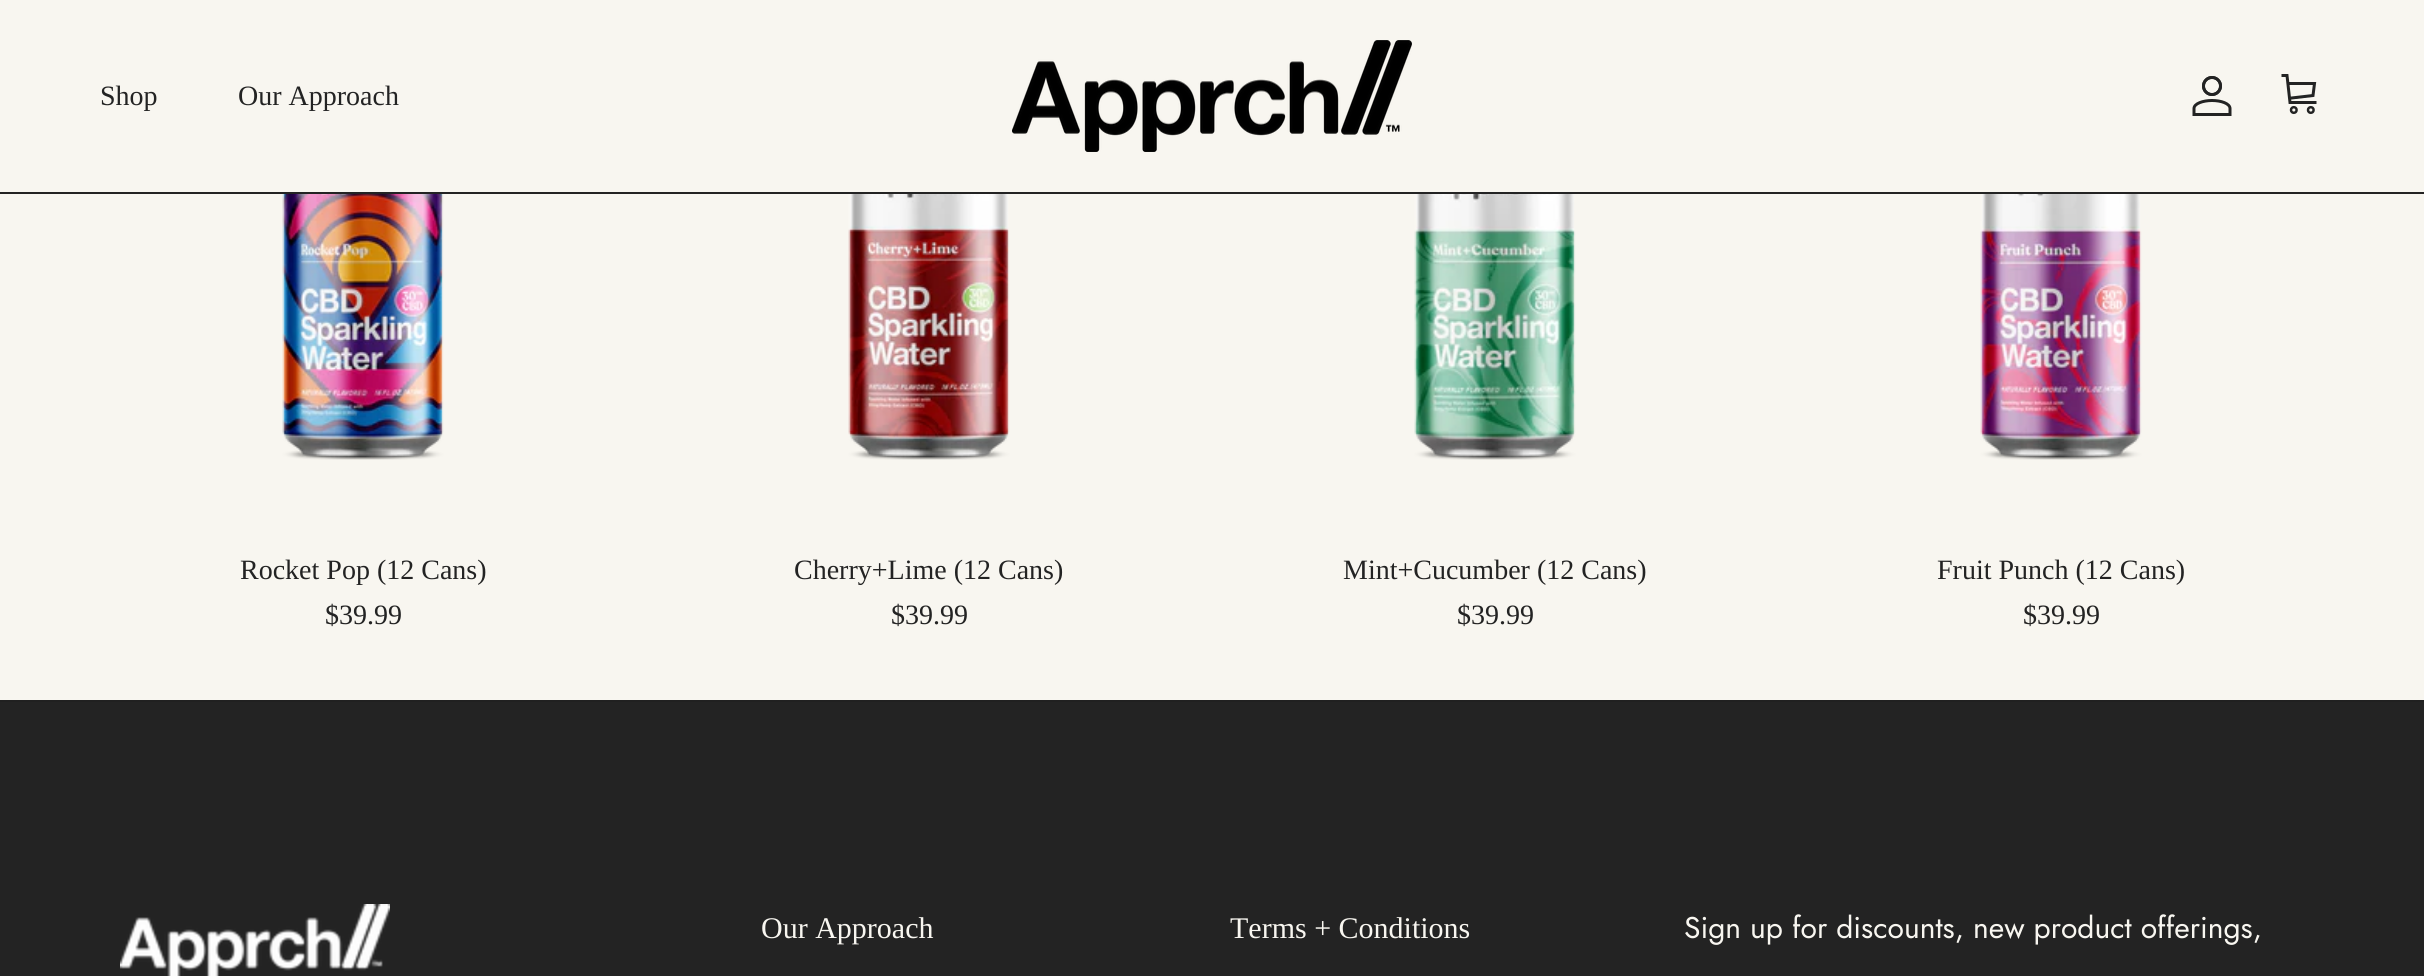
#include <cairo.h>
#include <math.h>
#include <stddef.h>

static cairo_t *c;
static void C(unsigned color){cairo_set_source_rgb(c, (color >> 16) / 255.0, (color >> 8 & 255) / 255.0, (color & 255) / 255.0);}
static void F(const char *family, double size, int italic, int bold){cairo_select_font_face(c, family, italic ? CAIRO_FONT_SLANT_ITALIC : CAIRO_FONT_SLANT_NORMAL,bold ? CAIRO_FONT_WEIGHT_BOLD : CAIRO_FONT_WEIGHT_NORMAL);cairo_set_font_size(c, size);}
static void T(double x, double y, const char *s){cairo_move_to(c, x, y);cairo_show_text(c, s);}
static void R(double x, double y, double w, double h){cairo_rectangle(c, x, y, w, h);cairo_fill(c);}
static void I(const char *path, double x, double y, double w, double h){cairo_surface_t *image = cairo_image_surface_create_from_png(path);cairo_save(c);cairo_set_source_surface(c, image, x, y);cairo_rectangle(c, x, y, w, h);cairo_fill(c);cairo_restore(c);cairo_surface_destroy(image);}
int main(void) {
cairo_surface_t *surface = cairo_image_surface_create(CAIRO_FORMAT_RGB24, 2424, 976);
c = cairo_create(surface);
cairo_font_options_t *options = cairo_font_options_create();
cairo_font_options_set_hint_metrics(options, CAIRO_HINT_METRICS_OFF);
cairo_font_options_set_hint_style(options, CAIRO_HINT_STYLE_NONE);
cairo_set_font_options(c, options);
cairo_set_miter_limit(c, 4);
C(0xf8f6f0);
cairo_paint(c);
C(0x232323);
R(0,192,2424,2);
F("Liberation Serif",28,0,0);
T(100,105,"Shop");
T(238,105,"Our Approach");
I("1.png",1012,40,400,112);
I("2.png",2192,76,40,40);
cairo_new_path(c);
cairo_move_to(c,2283,75.5);
cairo_line_to(c,2287,75.5);
cairo_line_to(c,2290,102.5);
cairo_line_to(c,2315,102.5);
cairo_move_to(c,2288.5,83.5);
cairo_line_to(c,2314.5,83.5);
cairo_line_to(c,2313,95.5);
cairo_line_to(c,2291.5,98);
cairo_set_line_width(c,3);
cairo_set_line_cap(c,CAIRO_LINE_CAP_SQUARE);
cairo_stroke(c);
cairo_arc(c,2293.8,110,2.8,0,2 * M_PI);
cairo_set_line_width(c,2.5);
cairo_set_line_cap(c,CAIRO_LINE_CAP_BUTT);
cairo_stroke(c);
cairo_arc(c,2310.8,110,2.8,0,2 * M_PI);
cairo_stroke(c);
I("3.png",282,194,162,266);
T(240,579,"Rocket Pop (12 Cans)");
T(325,624,"$39.99");
I("4.png",848,194,162,266);
T(794,579,"Cherry+Lime (12 Cans)");
T(891,624,"$39.99");
I("5.png",1414,194,162,266);
T(1343,579,"Mint+Cucumber (12 Cans)");
T(1457,624,"$39.99");
I("6.png",1980,194,162,266);
T(1937,579,"Fruit Punch (12 Cans)");
T(2023,624,"$39.99");
R(0,702,2424,274);
C(0x202020);
R(0,700,2424,2);
I("7.png",120,904,270,72);
F("Liberation Serif",30,0,0);
C(0xf8f6f0);
T(761,938,"Our Approach");
T(1230,938,"Terms + Conditions");
F("Jost",30,0,0);
T(1684,938,"Sign up for discounts, new product offerings,");
cairo_surface_write_to_png(surface, "o.png");
cairo_font_options_destroy(options);
cairo_destroy(c);
cairo_surface_destroy(surface);
return 0;
}
